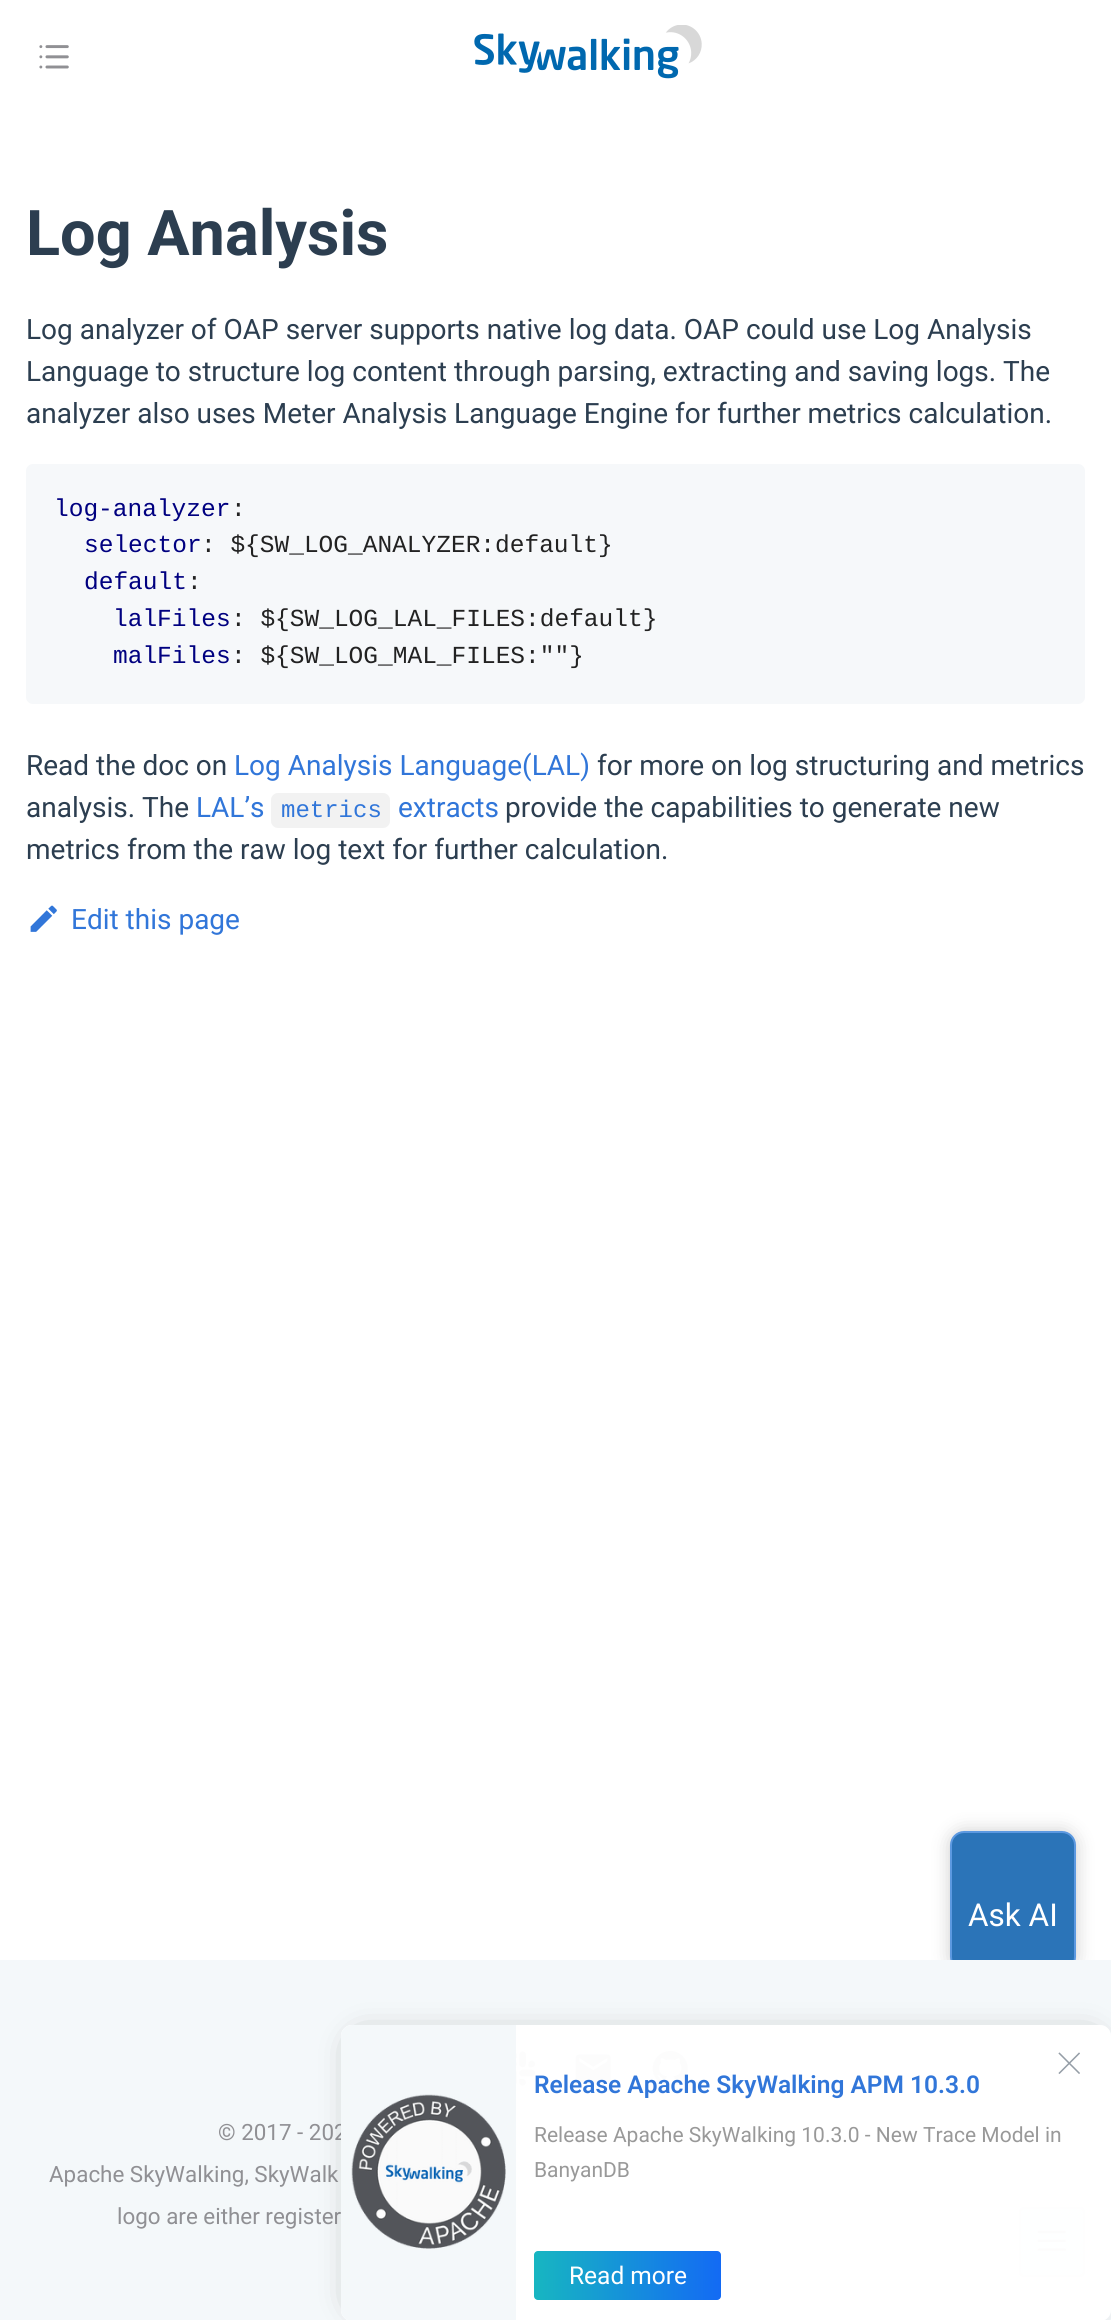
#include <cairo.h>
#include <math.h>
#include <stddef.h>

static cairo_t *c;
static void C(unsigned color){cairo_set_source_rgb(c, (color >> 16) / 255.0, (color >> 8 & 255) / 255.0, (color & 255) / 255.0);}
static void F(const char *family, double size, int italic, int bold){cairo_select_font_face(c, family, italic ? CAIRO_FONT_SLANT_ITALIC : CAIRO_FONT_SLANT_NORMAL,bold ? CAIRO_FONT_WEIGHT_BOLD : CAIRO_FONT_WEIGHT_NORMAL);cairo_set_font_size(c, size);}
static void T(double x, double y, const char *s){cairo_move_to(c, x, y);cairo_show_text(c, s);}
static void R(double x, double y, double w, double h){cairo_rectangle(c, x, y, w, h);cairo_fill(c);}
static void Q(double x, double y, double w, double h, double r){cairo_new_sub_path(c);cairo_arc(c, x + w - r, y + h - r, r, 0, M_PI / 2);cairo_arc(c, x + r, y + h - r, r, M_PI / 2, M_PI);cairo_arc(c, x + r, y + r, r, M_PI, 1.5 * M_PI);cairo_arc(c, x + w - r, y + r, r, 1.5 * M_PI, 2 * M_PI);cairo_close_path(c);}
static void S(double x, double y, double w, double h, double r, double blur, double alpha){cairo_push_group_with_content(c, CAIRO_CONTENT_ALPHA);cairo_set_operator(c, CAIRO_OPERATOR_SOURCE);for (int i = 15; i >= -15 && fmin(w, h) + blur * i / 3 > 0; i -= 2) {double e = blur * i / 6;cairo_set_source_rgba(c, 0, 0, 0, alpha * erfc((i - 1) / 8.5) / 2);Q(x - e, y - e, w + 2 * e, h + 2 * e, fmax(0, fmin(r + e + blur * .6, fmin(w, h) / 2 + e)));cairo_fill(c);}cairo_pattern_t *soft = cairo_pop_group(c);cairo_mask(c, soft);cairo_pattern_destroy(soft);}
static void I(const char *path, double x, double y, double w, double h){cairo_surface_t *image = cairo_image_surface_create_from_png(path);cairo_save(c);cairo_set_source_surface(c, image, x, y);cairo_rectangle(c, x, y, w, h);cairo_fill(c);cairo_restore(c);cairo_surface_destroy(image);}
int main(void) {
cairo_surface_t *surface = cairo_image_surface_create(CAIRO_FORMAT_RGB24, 1111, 2320);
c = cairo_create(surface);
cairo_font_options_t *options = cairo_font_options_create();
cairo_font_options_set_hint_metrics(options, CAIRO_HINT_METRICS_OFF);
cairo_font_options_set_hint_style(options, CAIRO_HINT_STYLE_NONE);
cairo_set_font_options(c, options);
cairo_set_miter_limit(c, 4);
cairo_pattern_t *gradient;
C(0xffffff);
cairo_paint(c);
I("1.png",39,45,30,24);
I("2.png",474,25,228,54);
F("Roboto",63,0,1);
C(0x2c3e50);
T(26,255,"Log Analysis");
F("Roboto",28,0,0);
T(26,339,"Log analyzer of OAP server supports native log data. OAP could use Log Analysis");
T(26,381,"Language to structure log content through parsing, extracting and saving logs. The");
T(26,423,"analyzer also uses Meter Analysis Language Engine for further metrics calculation.");
C(0xf6f8fa);
Q(26,464,1059,240,7);
cairo_fill(c);
F("Liberation Mono",24.5,0,0);
C(0x000080);
T(54,516,"log-analyzer");
C(0x222222);
T(231,516,":");
C(0x000080);
T(84,552,"selector");
C(0x222222);
T(201,552,": ${SW_LOG_ANALYZER:default}");
C(0x000080);
T(84,589,"default");
C(0x222222);
T(187,589,":");
C(0x000080);
T(113,626,"lalFiles");
C(0x222222);
T(231,626,": ${SW_LOG_LAL_FILES:default}");
C(0x000080);
T(113,663,"malFiles");
C(0x222222);
T(231,663,": ${SW_LOG_MAL_FILES:\"\"}");
F("Roboto",28,0,0);
C(0x2c3e50);
T(26,775,"Read the doc on");
C(0x3176d9);
T(234,775,"Log Analysis Language(LAL)");
C(0x2c3e50);
T(597,775,"for more on log structuring and metrics");
T(26,817,"analysis. The");
C(0x3176d9);
T(196,817,"LAL’s");
C(0xf2f2f2);
Q(271,793,119,35,7);
cairo_fill(c);
F("Liberation Mono",24,0,0);
C(0x3176d9);
T(281,817,"metrics");
F("Roboto",28,0,0);
T(398,817,"extracts");
C(0x2c3e50);
T(505,817,"provide the capabilities to generate new");
T(26,859,"metrics from the raw log text for further calculation.");
I("3.png",30,905,27,27);
C(0x3176d9);
T(71,929,"Edit this page");
C(0x000000);
S(950,1831,126,140,14,9,.2);
C(0x2b74b8);
Q(951,1832,124,138,13);
cairo_fill_preserve(c);
C(0x5c99e1);
cairo_stroke(c);
C(0xf4f8fa);
R(0,1960,1111,360);
C(0xeceff0);
Q(1020,2208,64,68,4);
cairo_fill_preserve(c);
C(0xcccccc);
cairo_stroke(c);
I("4.png",1037,2230,29,21);
I("5.png",516,2051,19,35);
I("6.png",575,2054,36,29);
I("7.png",652,2051,36,35);
F("Roboto",22.4,0,0);
C(0x909094);
T(218,2140,"© 2017 - 202");
T(49,2182,"Apache SkyWalking, SkyWalk");
T(117,2224,"logo are either register");
F("Roboto",31.5,0,0);
C(0xffffff);
T(968,1926,"Ask AI");
cairo_save(c);
cairo_set_fill_rule(c,CAIRO_FILL_RULE_EVEN_ODD);
cairo_new_path(c);
cairo_move_to(c,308,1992);
cairo_line_to(c,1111,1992);
cairo_line_to(c,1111,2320);
cairo_line_to(c,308,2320);
cairo_close_path(c);
cairo_move_to(c,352,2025);
cairo_line_to(c,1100,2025);
cairo_curve_to(c,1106,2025,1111,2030,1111,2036);
cairo_line_to(c,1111,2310);
cairo_curve_to(c,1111,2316,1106,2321,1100,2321);
cairo_line_to(c,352,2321);
cairo_curve_to(c,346,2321,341,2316,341,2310);
cairo_line_to(c,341,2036);
cairo_curve_to(c,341,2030,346,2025,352,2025);
cairo_close_path(c);
cairo_clip(c);
C(0x626365);
S(362,2046,728,254,0,17.5,1);
cairo_restore(c);
cairo_set_source_rgba(c,1,1,1,0.97);
Q(341,2025,770,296,11);
cairo_fill(c);
C(0xf4f8fa);
cairo_new_path(c);
cairo_move_to(c,352,2025);
cairo_line_to(c,516,2025);
cairo_line_to(c,516,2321);
cairo_line_to(c,352,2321);
cairo_curve_to(c,346,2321,341,2316,341,2310);
cairo_line_to(c,341,2036);
cairo_curve_to(c,341,2030,346,2025,352,2025);
cairo_close_path(c);
cairo_fill(c);
I("8.png",351,2094,155,155);
I("9.png",1058,2052,22,22);
F("Roboto SemiBold",24.5,0,0);
C(0x3176d9);
T(534,2093,"Release Apache SkyWalking APM 10.3.0");
F("Roboto",21,0,0);
C(0x999999);
T(534,2142,"Release Apache SkyWalking 10.3.0 - New Trace Model in");
T(534,2177,"BanyanDB");
gradient = cairo_pattern_create_linear(534,2275,721,2275);
cairo_pattern_add_color_stop_rgba(gradient,0,0.09,0.714,0.757,1);
cairo_pattern_add_color_stop_rgba(gradient,1,0.075,0.416,0.957,1);
cairo_set_source(c,gradient);
cairo_pattern_destroy(gradient);
Q(534,2251,187,49,4);
cairo_fill(c);
F("Roboto",24.5,0,0);
C(0xffffff);
T(569,2284,"Read more");
cairo_surface_write_to_png(surface, "o.png");
cairo_font_options_destroy(options);
cairo_destroy(c);
cairo_surface_destroy(surface);
return 0;
}
